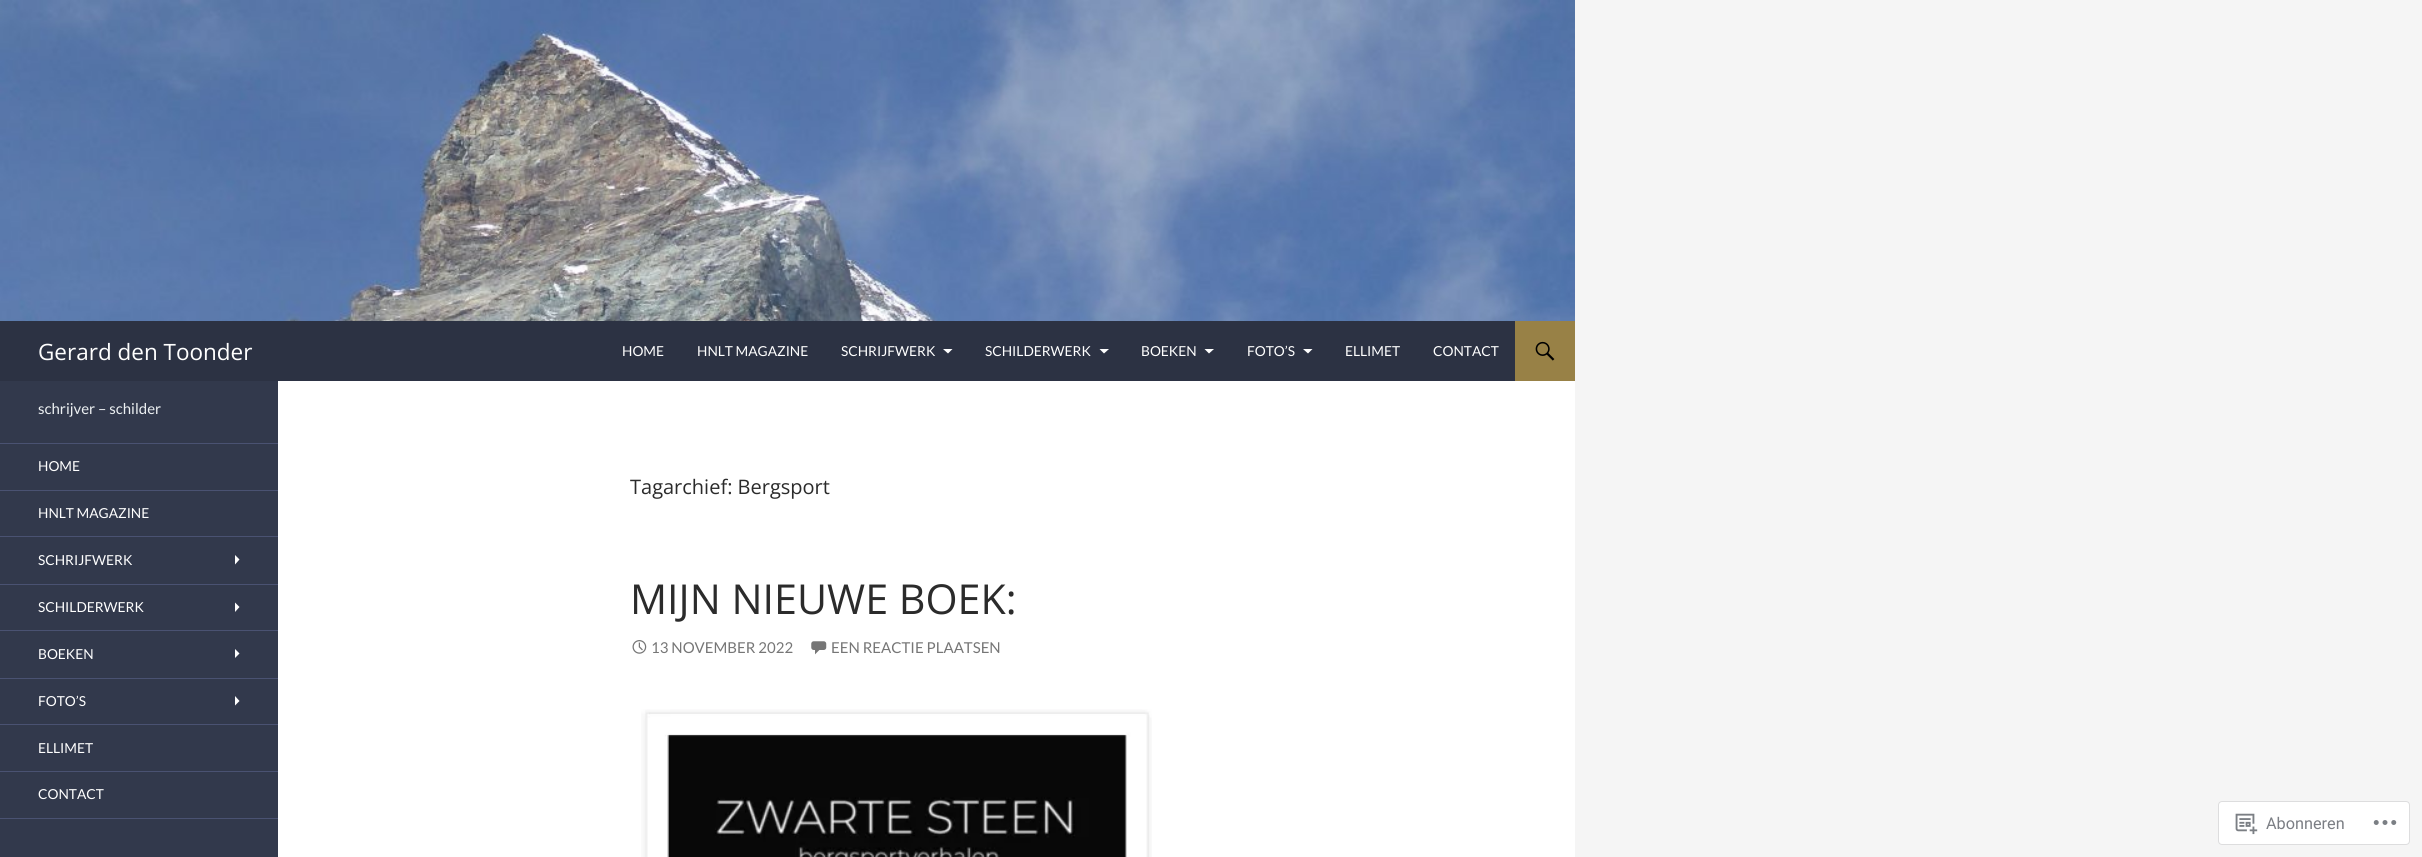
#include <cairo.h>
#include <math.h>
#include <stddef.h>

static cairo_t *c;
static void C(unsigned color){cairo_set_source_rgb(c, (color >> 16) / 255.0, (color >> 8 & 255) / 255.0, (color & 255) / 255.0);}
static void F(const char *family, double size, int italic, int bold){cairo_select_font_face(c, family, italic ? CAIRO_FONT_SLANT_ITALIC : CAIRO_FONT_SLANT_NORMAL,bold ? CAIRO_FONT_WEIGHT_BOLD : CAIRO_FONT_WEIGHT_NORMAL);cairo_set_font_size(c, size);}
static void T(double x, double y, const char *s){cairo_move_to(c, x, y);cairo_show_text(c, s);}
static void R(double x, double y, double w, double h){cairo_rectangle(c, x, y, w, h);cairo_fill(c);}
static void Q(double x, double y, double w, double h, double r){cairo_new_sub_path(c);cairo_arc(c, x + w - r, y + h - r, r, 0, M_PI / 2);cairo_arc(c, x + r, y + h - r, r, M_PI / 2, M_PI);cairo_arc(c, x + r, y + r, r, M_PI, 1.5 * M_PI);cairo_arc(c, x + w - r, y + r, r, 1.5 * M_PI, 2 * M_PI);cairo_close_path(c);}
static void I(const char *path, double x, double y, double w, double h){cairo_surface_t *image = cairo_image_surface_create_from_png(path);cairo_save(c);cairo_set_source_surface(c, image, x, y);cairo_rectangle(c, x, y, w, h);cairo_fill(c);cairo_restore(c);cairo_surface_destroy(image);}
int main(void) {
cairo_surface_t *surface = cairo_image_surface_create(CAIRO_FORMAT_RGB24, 2422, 857);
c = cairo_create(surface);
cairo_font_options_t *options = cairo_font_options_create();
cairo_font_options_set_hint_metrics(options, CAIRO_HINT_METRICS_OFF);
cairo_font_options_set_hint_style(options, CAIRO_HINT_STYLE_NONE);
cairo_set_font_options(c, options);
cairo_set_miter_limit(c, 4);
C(0xf5f5f5);
cairo_paint(c);
C(0xffffff);
R(278,381,1297,476);
I("1.png",0,0,1575,321);
C(0x2c3243);
R(0,321,1515,60);
F("Open Sans",22.5,0,0);
C(0xffffff);
T(38,360,"Gerard den Toonder");
F("Lato",13.75,0,0);
T(622,356,"HOME");
T(697,356,"HNLT MAGAZINE");
T(841,356,"SCHRIJFWERK");
cairo_new_path(c);
cairo_move_to(c,943,349);
cairo_line_to(c,952.5,349);
cairo_line_to(c,948,353.5);
cairo_close_path(c);
cairo_fill(c);
T(985,356,"SCHILDERWERK");
cairo_new_path(c);
cairo_move_to(c,1099.5,349);
cairo_line_to(c,1109,349);
cairo_line_to(c,1104,353.5);
cairo_close_path(c);
cairo_fill(c);
T(1141,356,"BOEKEN");
cairo_new_path(c);
cairo_move_to(c,1204.5,349);
cairo_line_to(c,1214,349);
cairo_line_to(c,1209,353.5);
cairo_close_path(c);
cairo_fill(c);
T(1247,356,"FOTO’S");
cairo_new_path(c);
cairo_move_to(c,1303,349);
cairo_line_to(c,1312.5,349);
cairo_line_to(c,1308,353.5);
cairo_close_path(c);
cairo_fill(c);
T(1345,356,"ELLIMET");
T(1433,356,"CONTACT");
C(0x988146);
R(1515,321,60,60);
I("2.png",1535,341,20,20);
C(0x32394c);
R(0,381,278,476);
F("Lato",15,0,0);
C(0xecf0f2);
T(38,414,"schrijver – schilder");
C(0x4a5272);
R(0,818,278,1);
R(0,443,278,1);
F("Lato",13.75,0,0);
C(0xffffff);
T(38,471,"HOME");
C(0x4a5272);
R(0,490,278,1);
C(0xffffff);
T(38,518,"HNLT MAGAZINE");
C(0x4a5272);
R(0,536,278,1);
C(0xffffff);
T(38,565,"SCHRIJFWERK");
cairo_new_path(c);
cairo_move_to(c,235,564.5);
cairo_line_to(c,235,555);
cairo_line_to(c,239.5,559.5);
cairo_close_path(c);
cairo_fill(c);
C(0x4a5272);
R(0,584,278,1);
C(0xffffff);
T(38,612,"SCHILDERWERK");
cairo_new_path(c);
cairo_move_to(c,235,612);
cairo_line_to(c,235,602.5);
cairo_line_to(c,239.5,607);
cairo_close_path(c);
cairo_fill(c);
C(0x4a5272);
R(0,630,278,1);
C(0xffffff);
T(38,659,"BOEKEN");
cairo_new_path(c);
cairo_move_to(c,235,658);
cairo_line_to(c,235,649);
cairo_line_to(c,239.5,653.5);
cairo_close_path(c);
cairo_fill(c);
C(0x4a5272);
R(0,678,278,1);
C(0xffffff);
T(38,706,"FOTO’S");
cairo_new_path(c);
cairo_move_to(c,235,705.5);
cairo_line_to(c,235,696);
cairo_line_to(c,239.5,701);
cairo_close_path(c);
cairo_fill(c);
C(0x4a5272);
R(0,724,278,1);
C(0xffffff);
T(38,753,"ELLIMET");
C(0x4a5272);
R(0,771,278,1);
C(0xffffff);
T(38,799,"CONTACT");
F("Open Sans",20,0,0);
C(0x2b2b2b);
T(630,494,"Tagarchief: Bergsport");
F("Open Sans",41.25,0,0);
T(630,614,"MIJN NIEUWE BOEK:");
I("3.png",632,640,15,14);
F("Lato",15,0,0);
C(0x767676);
T(651,653,"13 NOVEMBER 2022");
I("4.png",811,641,16,14);
T(831,653,"EEN REACTIE PLAATSEN");
I("5.png",641,709,511,148);
C(0xffffff);
Q(2218.5,801.5,191,43,3.5);
cairo_fill_preserve(c);
C(0xddddde);
cairo_set_line_width(c,1);
cairo_stroke(c);
I("6.png",2235,813,23,22);
F("Roboto",16.25,0,0);
C(0x7b7e84);
T(2266,829,"Abonneren");
I("7.png",2373,820,24,5);
cairo_surface_write_to_png(surface, "o.png");
cairo_font_options_destroy(options);
cairo_destroy(c);
cairo_surface_destroy(surface);
return 0;
}
